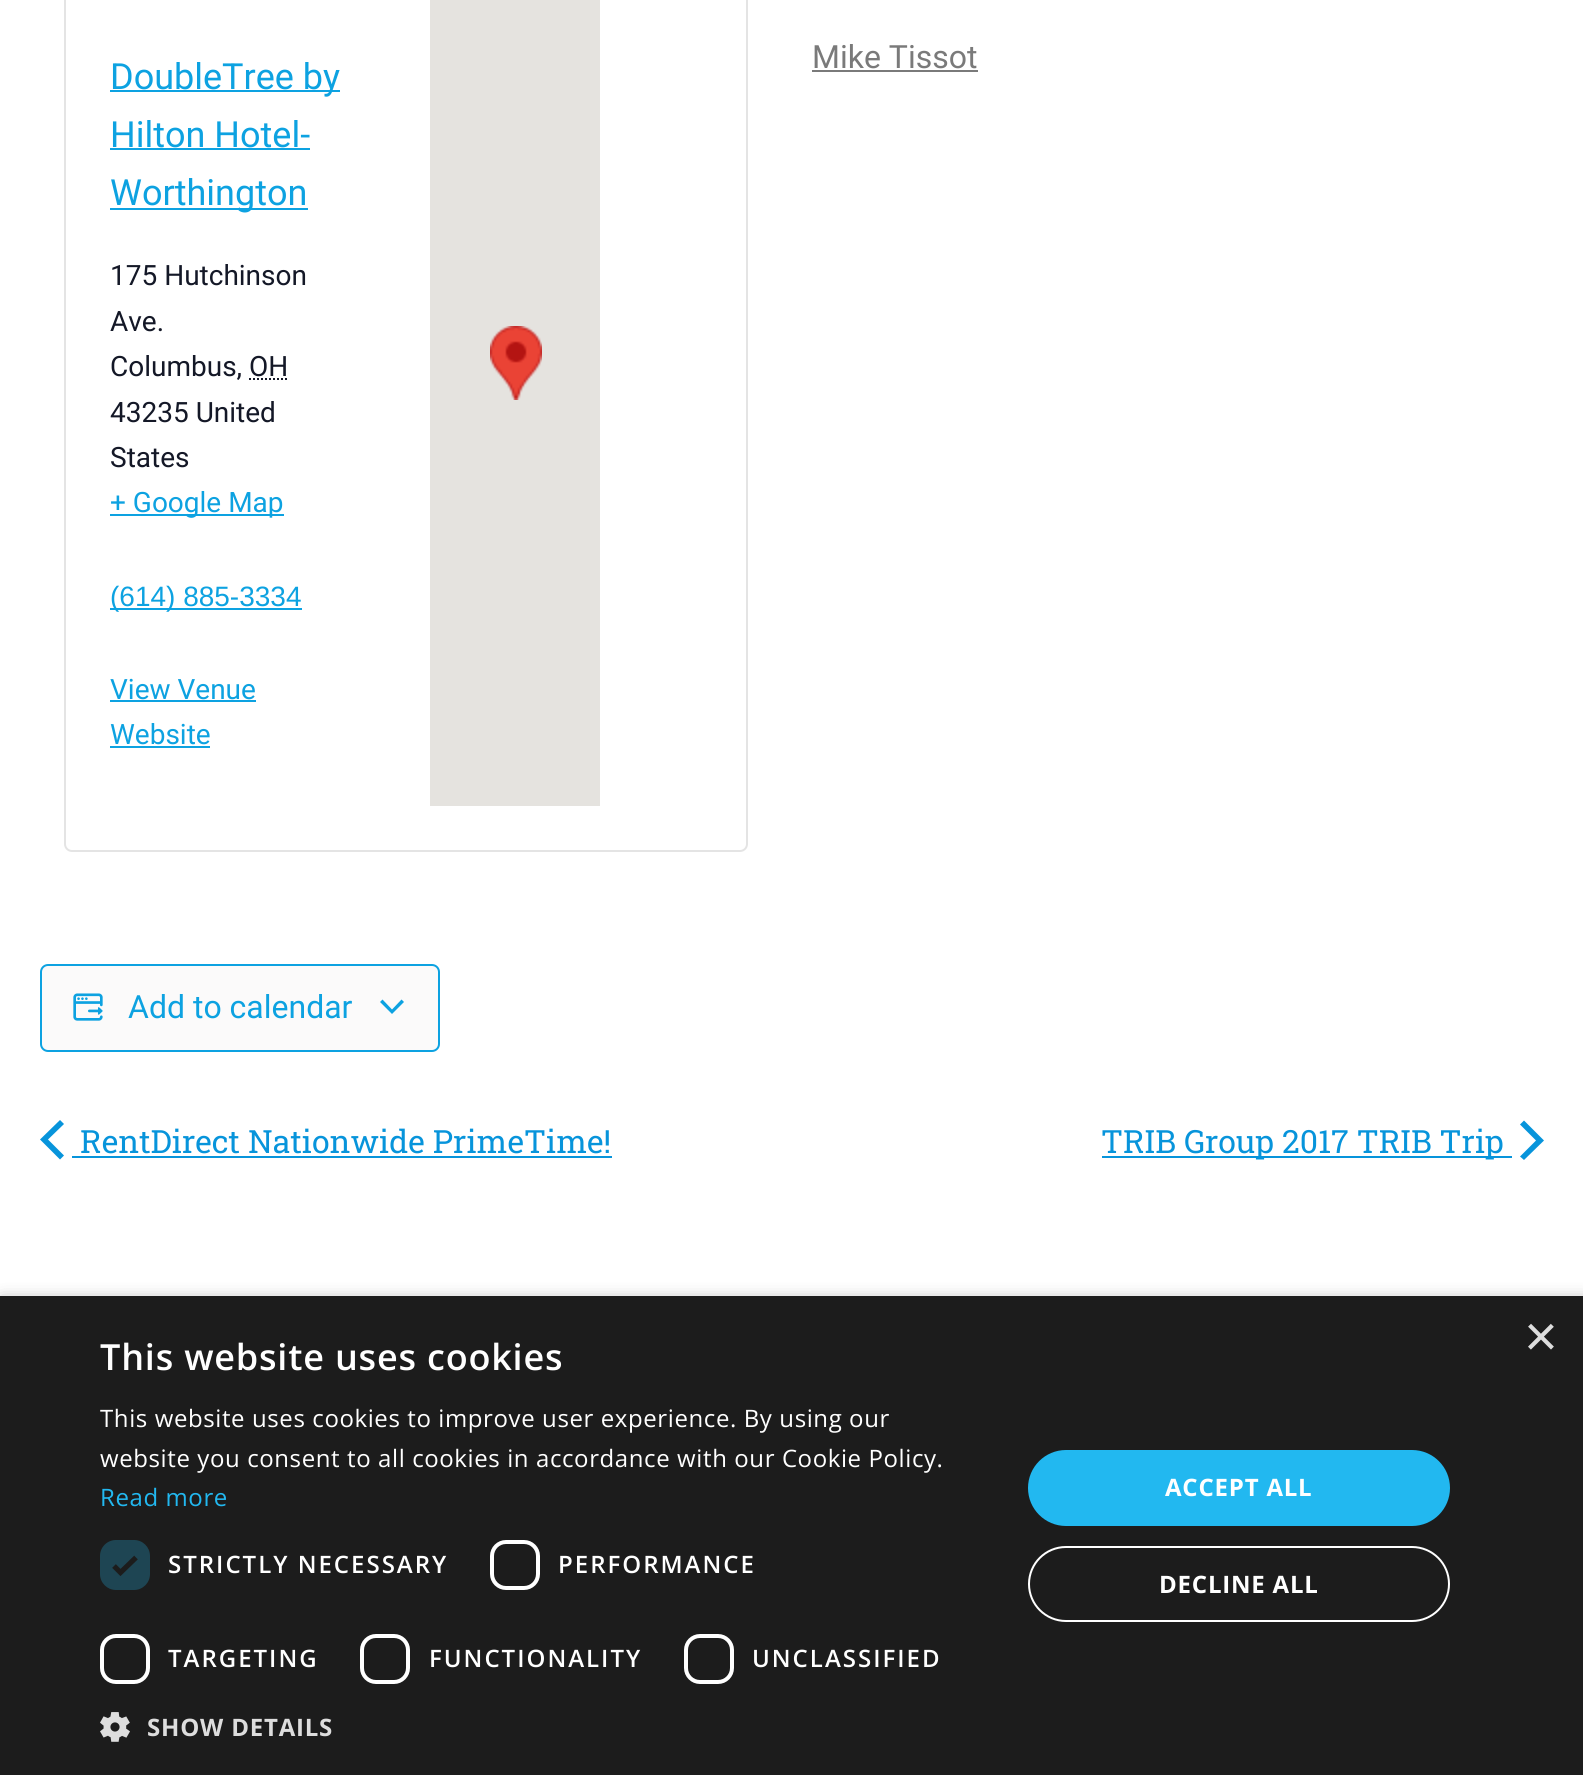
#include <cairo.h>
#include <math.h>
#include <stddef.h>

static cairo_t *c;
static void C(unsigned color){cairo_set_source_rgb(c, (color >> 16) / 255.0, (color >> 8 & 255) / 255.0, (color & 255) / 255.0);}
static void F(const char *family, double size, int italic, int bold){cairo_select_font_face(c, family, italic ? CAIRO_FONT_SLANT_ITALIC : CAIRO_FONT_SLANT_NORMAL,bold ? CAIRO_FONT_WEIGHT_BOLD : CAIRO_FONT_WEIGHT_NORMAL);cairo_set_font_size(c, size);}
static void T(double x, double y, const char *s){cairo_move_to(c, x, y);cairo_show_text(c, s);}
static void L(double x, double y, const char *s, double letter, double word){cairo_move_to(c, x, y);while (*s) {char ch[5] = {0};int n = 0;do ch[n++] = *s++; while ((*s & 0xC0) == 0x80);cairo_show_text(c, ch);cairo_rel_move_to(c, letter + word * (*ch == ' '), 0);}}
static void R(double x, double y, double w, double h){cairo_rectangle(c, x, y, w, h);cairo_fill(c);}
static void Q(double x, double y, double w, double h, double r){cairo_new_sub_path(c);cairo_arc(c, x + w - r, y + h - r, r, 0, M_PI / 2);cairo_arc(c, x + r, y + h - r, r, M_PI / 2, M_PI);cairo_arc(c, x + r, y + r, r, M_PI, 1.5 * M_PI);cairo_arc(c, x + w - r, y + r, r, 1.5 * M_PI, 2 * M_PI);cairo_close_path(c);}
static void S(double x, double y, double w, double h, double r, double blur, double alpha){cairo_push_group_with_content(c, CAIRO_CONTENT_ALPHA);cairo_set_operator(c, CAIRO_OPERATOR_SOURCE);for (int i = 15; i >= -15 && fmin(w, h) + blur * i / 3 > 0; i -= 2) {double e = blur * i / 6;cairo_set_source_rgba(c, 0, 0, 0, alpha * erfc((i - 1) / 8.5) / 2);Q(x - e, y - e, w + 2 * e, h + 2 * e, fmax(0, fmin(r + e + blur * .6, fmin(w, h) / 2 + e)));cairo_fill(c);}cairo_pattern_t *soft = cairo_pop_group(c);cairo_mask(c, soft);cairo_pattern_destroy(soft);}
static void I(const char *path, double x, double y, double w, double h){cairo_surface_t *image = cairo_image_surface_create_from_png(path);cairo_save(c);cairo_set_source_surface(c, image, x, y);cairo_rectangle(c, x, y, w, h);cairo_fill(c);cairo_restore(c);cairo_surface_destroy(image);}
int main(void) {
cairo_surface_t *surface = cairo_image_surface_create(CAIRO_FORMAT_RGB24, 1583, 1775);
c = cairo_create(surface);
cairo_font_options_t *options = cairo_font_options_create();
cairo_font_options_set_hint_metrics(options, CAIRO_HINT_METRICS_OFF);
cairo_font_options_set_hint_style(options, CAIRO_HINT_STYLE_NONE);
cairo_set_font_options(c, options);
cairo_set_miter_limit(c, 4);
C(0xffffff);
cairo_paint(c);
F("Roboto",32,0,0);
C(0x7a7a7a);
T(812,68,"Mike Tissot");
R(812,70,166,2);
Q(65,-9,682,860,7);
C(0xe4e4e4);
cairo_stroke(c);
C(0x0da2e1);
R(110,90,230,2);
F("Roboto",36,0,0);
T(110,89,"DoubleTree by");
T(110,147,"Hilton Hotel-");
R(110,148,200,2);
R(110,208,198,2);
T(110,205,"Worthington");
F("Roboto",28,0,0);
C(0x141827);
T(110,285,"175 Hutchinson");
T(110,331,"Ave.");
T(110,376,"Columbus, OH");
cairo_new_path(c);
cairo_move_to(c,249,379);
cairo_line_to(c,288.5,379);
cairo_set_dash(c,(double[]){2,2},2,0);
cairo_stroke(c);
T(110,422,"43235 United");
T(110,467,"States");
C(0x0da2e1);
R(110,514,174,2);
T(110,512,"+ Google Map");
R(110,608,192,2);
F("Liberation Sans",28,0,0);
T(110,606,"(614) 885-3334");
F("Roboto",28,0,0);
T(110,699,"View Venue");
R(110,700,146,2);
T(110,744,"Website");
R(110,746,100,2);
C(0xe5e3df);
R(430,0,170,806);
I("1.png",490,326,52,74);
C(0xfbfafa);
Q(41,965,398,86,7);
cairo_fill_preserve(c);
C(0x0da2e1);
cairo_set_dash(c,NULL,0,0);
cairo_stroke(c);
I("2.png",73,993,30,28);
F("Roboto",32,0,0);
T(128,1018,"Add to calendar");
cairo_new_path(c);
cairo_move_to(c,382.5,999.5);
cairo_line_to(c,392,1009.5);
cairo_line_to(c,401.5,999.5);
cairo_line_to(c,404,1002);
cairo_line_to(c,392,1014);
cairo_line_to(c,380,1002);
cairo_close_path(c);
cairo_fill(c);
F("Roboto Slab",32,0,0);
C(0x0794db);
T(80,1153,"RentDirect Nationwide PrimeTime!");
R(72,1156,540,2);
cairo_new_path(c);
cairo_move_to(c,64,1155.5);
cairo_line_to(c,60,1159.5);
cairo_line_to(c,40,1139.5);
cairo_line_to(c,60,1120);
cairo_line_to(c,64,1124);
cairo_line_to(c,48,1139.5);
cairo_close_path(c);
cairo_fill(c);
R(1102,1156,410,2);
T(1101,1153,"TRIB Group 2017 TRIB Trip");
cairo_new_path(c);
cairo_move_to(c,1520,1124.5);
cairo_line_to(c,1524,1120.5);
cairo_line_to(c,1544,1140.5);
cairo_line_to(c,1524,1160);
cairo_line_to(c,1520,1156.5);
cairo_line_to(c,1536,1140.5);
cairo_close_path(c);
cairo_fill(c);
C(0x000000);
S(2,1300,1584,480,0,8,.35);
C(0x1c1c1c);
R(0,1296,1583,479);
F("Liberation Sans",58,0,0);
C(0xdddddd);
T(1524,1356,"×");
F("Open Sans SemiBold",36,0,0);
C(0xffffff);
L(100,1370,"This website uses cookies",.8,0);
F("Open Sans",24,0,0);
L(100,1427,"This website uses cookies to improve user experience. By using our",.6,0);
L(100,1467,"website you consent to all cookies in accordance with our Cookie Policy.",.6,0);
C(0x22b8f0);
L(100,1506,"Read more",.6,0);
C(0x1e4553);
Q(100,1540,50,50,16);
cairo_fill(c);
cairo_new_path(c);
cairo_move_to(c,114,1566);
cairo_line_to(c,120.5,1572.5);
cairo_line_to(c,136,1557.5);
C(0x1c1c1c);
cairo_set_line_width(c,5.2);
cairo_stroke(c);
F("Open Sans SemiBold",24,0,0);
C(0xffffff);
L(168,1573,"STRICTLY NECESSARY",2,0);
Q(492,1542,46,46,14);
cairo_set_line_width(c,4);
cairo_stroke(c);
L(558,1573,"PERFORMANCE",2,0);
Q(102,1636,46,46,14);
cairo_stroke(c);
L(168,1667,"TARGETING",2,0);
Q(362,1636,46,46,14);
cairo_stroke(c);
L(429,1667,"FUNCTIONALITY",2,0);
Q(686,1636,46,46,14);
cairo_stroke(c);
L(752,1667,"UNCLASSIFIED",2,0);
I("3.png",100,1712,30,30);
F("Open Sans",24,0,1);
C(0xdddddd);
L(147,1736,"SHOW DETAILS",.8,0);
C(0x22b8f0);
Q(1028,1450,422,76,38);
cairo_fill(c);
C(0xffffff);
L(1165,1496,"ACCEPT ALL",.8,0);
Q(1029,1547,420,74,37);
cairo_set_line_width(c,2);
cairo_stroke(c);
L(1159,1593,"DECLINE ALL",.8,0);
cairo_surface_write_to_png(surface, "o.png");
cairo_font_options_destroy(options);
cairo_destroy(c);
cairo_surface_destroy(surface);
return 0;
}
